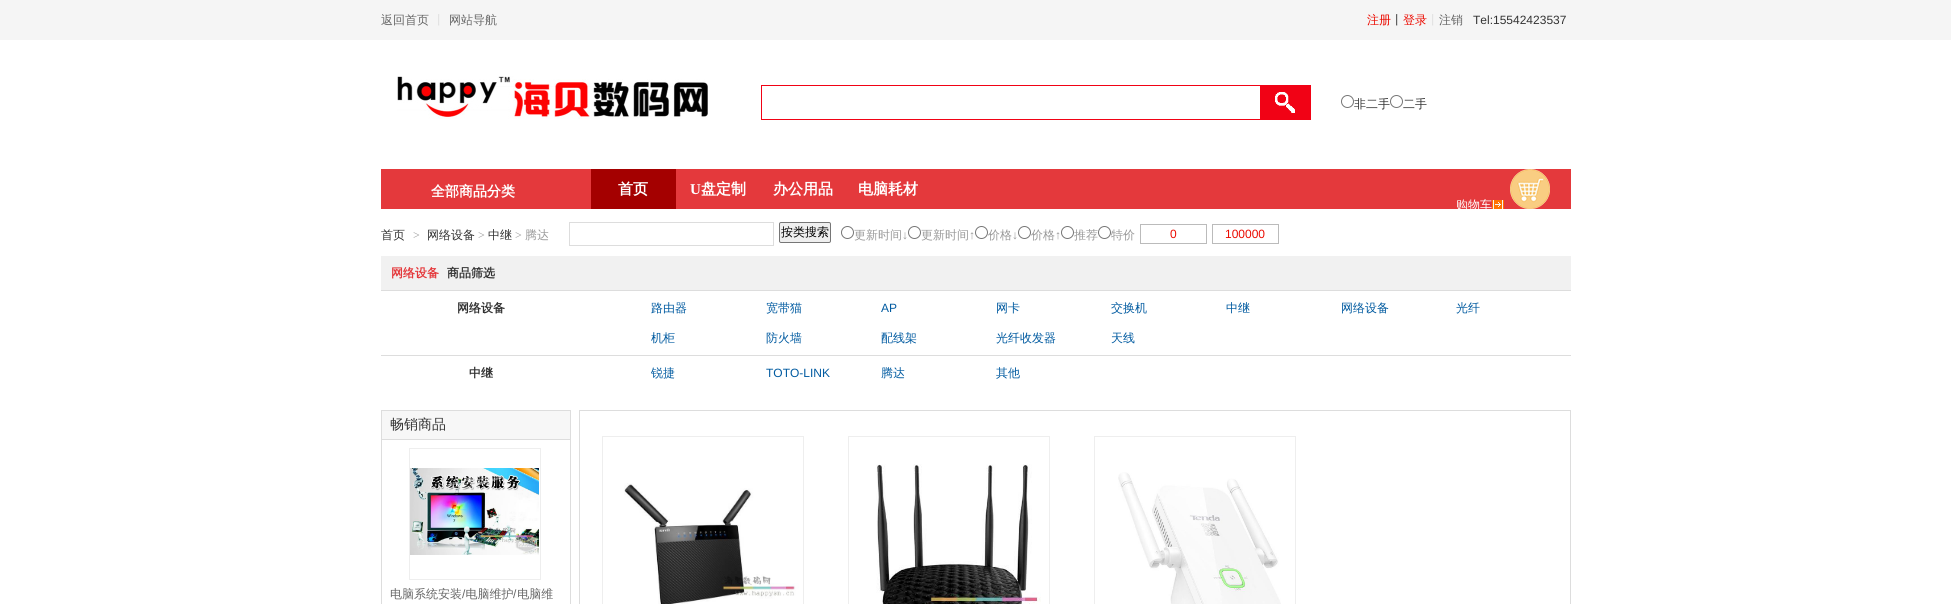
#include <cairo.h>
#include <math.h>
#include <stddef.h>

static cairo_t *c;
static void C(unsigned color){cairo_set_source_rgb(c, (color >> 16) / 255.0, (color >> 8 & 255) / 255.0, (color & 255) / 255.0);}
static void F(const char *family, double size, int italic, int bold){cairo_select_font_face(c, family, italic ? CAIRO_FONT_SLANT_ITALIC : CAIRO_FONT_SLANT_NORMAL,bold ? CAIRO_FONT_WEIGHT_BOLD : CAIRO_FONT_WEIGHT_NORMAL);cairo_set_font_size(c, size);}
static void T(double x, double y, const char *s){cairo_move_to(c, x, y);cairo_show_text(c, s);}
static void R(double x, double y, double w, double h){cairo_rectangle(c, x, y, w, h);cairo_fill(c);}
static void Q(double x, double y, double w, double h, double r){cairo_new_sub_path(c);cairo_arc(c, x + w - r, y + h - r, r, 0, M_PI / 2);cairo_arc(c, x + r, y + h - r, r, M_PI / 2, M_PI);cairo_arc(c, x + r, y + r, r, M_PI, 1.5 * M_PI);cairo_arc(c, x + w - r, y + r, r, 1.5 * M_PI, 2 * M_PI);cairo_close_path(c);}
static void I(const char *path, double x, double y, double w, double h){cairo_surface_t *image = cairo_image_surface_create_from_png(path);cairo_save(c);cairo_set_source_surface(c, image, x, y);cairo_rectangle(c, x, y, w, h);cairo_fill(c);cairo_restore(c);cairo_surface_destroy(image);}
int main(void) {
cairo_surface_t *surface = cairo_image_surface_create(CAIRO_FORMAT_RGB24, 1951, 604);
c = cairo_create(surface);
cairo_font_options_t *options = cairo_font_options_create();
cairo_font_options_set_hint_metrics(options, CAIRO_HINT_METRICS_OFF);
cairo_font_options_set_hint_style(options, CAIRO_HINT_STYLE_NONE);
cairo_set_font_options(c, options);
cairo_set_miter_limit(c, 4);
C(0xffffff);
cairo_paint(c);
C(0xf5f5f5);
R(0,0,1951,40);
F("WenQuanYi Zen Hei Medium",12,0,0);
C(0x666666);
T(381,24,"返回首页");
C(0xdddddd);
T(433,24,"丨");
C(0x666666);
T(449,24,"网站导航");
C(0xeb0a00);
T(1367,24,"注册");
C(0x333333);
T(1391,24,"丨");
C(0xeb0a00);
T(1403,24,"登录");
C(0xdddddd);
T(1427,24,"丨");
C(0x666666);
T(1439,24,"注销");
F("Liberation Sans",12,0,0);
C(0x333333);
T(1473,24,"Tel:15542423537");
I("1.png",397,76,311,43);
cairo_rectangle(c,761.5,85.5,499,34);
C(0xf10215);
cairo_set_line_width(c,1);
cairo_stroke(c);
R(1261,85,50,35);
I("2.png",1275,92,20,21);
cairo_arc(c,1347.5,101.5,6,0,2 * M_PI);
C(0x767676);
cairo_stroke(c);
F("WenQuanYi Zen Hei Medium",12,0,0);
C(0x333333);
T(1354,108,"非二手");
cairo_new_path(c);
cairo_arc(c,1396.5,101.5,6,0,2 * M_PI);
C(0x767676);
cairo_stroke(c);
C(0x333333);
T(1403,108,"二手");
C(0xe4393c);
R(381,169,1190,40);
F("WenQuanYi Zen Hei",14,0,1);
C(0xffffff);
T(431,196,"全部商品分类");
C(0xa40000);
R(591,169,85,40);
F("WenQuanYi Zen Hei",15,0,1);
C(0xffffff);
T(618,194,"首页");
F("Liberation Serif",15,0,1);
T(690,194,"U");
F("WenQuanYi Zen Hei",15,0,1);
T(701,194,"盘定制");
T(773,194,"办公用品");
T(858,194,"电脑耗材");
F("WenQuanYi Zen Hei Medium",12,0,0);
T(1456,209,"购物车");
I("3.png",1492,200,12,9);
I("4.png",1510,169,40,40);
C(0x333333);
T(381,239,"首页");
F("Liberation Serif",12,0,0);
C(0x999999);
T(413,239,">");
F("WenQuanYi Zen Hei Medium",12,0,0);
C(0x333333);
T(427,239,"网络设备");
F("Liberation Serif",12,0,0);
C(0x999999);
T(478,239,">");
F("WenQuanYi Zen Hei Medium",12,0,0);
C(0x333333);
T(488,239,"中继");
F("Liberation Serif",12,0,0);
C(0x999999);
T(515,239,">");
F("WenQuanYi Zen Hei Medium",12,0,0);
T(525,239,"腾达");
cairo_rectangle(c,569.5,222.5,204,23);
C(0xdddddd);
cairo_stroke(c);
C(0xefefef);
Q(779.5,222.5,51,20,1.5);
cairo_fill_preserve(c);
C(0x767676);
cairo_stroke(c);
C(0x000000);
T(781,236,"按类搜索");
cairo_new_path(c);
cairo_arc(c,847.5,232.5,6,0,2 * M_PI);
C(0x767676);
cairo_stroke(c);
C(0x999999);
T(854,239,"更新时间");
F("Liberation Serif",12,0,0);
T(902,239,"↓");
cairo_new_path(c);
cairo_arc(c,914.5,232.5,6,0,2 * M_PI);
C(0x767676);
cairo_stroke(c);
F("WenQuanYi Zen Hei Medium",12,0,0);
C(0x999999);
T(921,239,"更新时间");
F("Liberation Serif",12,0,0);
T(969,239,"↑");
cairo_new_path(c);
cairo_arc(c,981.5,232.5,6,0,2 * M_PI);
C(0x767676);
cairo_stroke(c);
F("WenQuanYi Zen Hei Medium",12,0,0);
C(0x999999);
T(988,239,"价格");
F("Liberation Serif",12,0,0);
T(1012,239,"↓");
cairo_new_path(c);
cairo_arc(c,1024.5,232.5,6,0,2 * M_PI);
C(0x767676);
cairo_stroke(c);
F("WenQuanYi Zen Hei Medium",12,0,0);
C(0x999999);
T(1031,239,"价格");
F("Liberation Serif",12,0,0);
T(1055,239,"↑");
cairo_new_path(c);
cairo_arc(c,1067.5,232.5,6,0,2 * M_PI);
C(0x767676);
cairo_stroke(c);
F("WenQuanYi Zen Hei Medium",12,0,0);
C(0x999999);
T(1074,239,"推荐");
cairo_new_path(c);
cairo_arc(c,1104.5,232.5,6,0,2 * M_PI);
C(0x767676);
cairo_stroke(c);
C(0x999999);
T(1111,239,"特价");
cairo_rectangle(c,1140.5,224.5,66,19);
C(0xbbbbbb);
cairo_stroke(c);
F("Liberation Sans",12,0,0);
C(0xeb0a00);
T(1170,238,"0");
cairo_rectangle(c,1212.5,224.5,66,19);
C(0xbbbbbb);
cairo_stroke(c);
C(0xeb0a00);
T(1225,238,"100000");
C(0xf1f1f1);
R(381,256,1190,34);
C(0xdddddd);
R(381,290,1190,1);
F("WenQuanYi Zen Hei",12,0,1);
C(0xe4393c);
T(391,277,"网络设备");
C(0x333333);
T(447,277,"商品筛选");
C(0xdddddd);
R(381,355,1190,1);
C(0x333333);
T(457,312,"网络设备");
F("WenQuanYi Zen Hei Medium",12,0,0);
C(0x005aa0);
T(651,312,"路由器");
T(766,312,"宽带猫");
F("Liberation Sans",12,0,0);
T(881,312,"AP");
F("WenQuanYi Zen Hei Medium",12,0,0);
T(996,312,"网卡");
T(1111,312,"交换机");
T(1226,312,"中继");
T(1341,312,"网络设备");
T(1456,312,"光纤");
T(651,342,"机柜");
T(766,342,"防火墙");
T(881,342,"配线架");
T(996,342,"光纤收发器");
T(1111,342,"天线");
F("WenQuanYi Zen Hei",12,0,1);
C(0x333333);
T(469,377,"中继");
F("WenQuanYi Zen Hei Medium",12,0,0);
C(0x005aa0);
T(651,377,"锐捷");
F("Liberation Sans",12,0,0);
T(766,377,"TOTO-LINK");
F("WenQuanYi Zen Hei Medium",12,0,0);
T(881,377,"腾达");
T(996,377,"其他");
C(0xf7f7f7);
cairo_rectangle(c,381.5,410.5,189,29);
cairo_fill_preserve(c);
C(0xdddddd);
cairo_stroke(c);
F("WenQuanYi Zen Hei Medium",14,0,0);
C(0x333333);
T(390,429,"畅销商品");
C(0xdddddd);
R(570,440,1,164);
R(381,440,1,164);
cairo_rectangle(c,409.5,448.5,131,131);
C(0xeeeeee);
cairo_stroke(c);
I("5.png",410,468,129,87);
F("WenQuanYi Zen Hei Medium",12,0,0);
C(0x666666);
T(390,598,"电脑系统安装 电脑维护 电脑维");
F("Liberation Sans",12,0,0);
T(462,598,"/");
T(513,598,"/");
cairo_rectangle(c,579.5,410.5,991,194);
C(0xdddddd);
cairo_stroke(c);
cairo_rectangle(c,602.5,436.5,201,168);
C(0xeeeeee);
cairo_stroke(c);
I("6.png",624,483,175,121);
cairo_rectangle(c,848.5,436.5,201,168);
cairo_stroke(c);
I("7.png",876,464,165,140);
cairo_rectangle(c,1094.5,436.5,201,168);
cairo_stroke(c);
I("8.png",1118,472,163,132);
cairo_surface_write_to_png(surface, "o.png");
cairo_font_options_destroy(options);
cairo_destroy(c);
cairo_surface_destroy(surface);
return 0;
}
